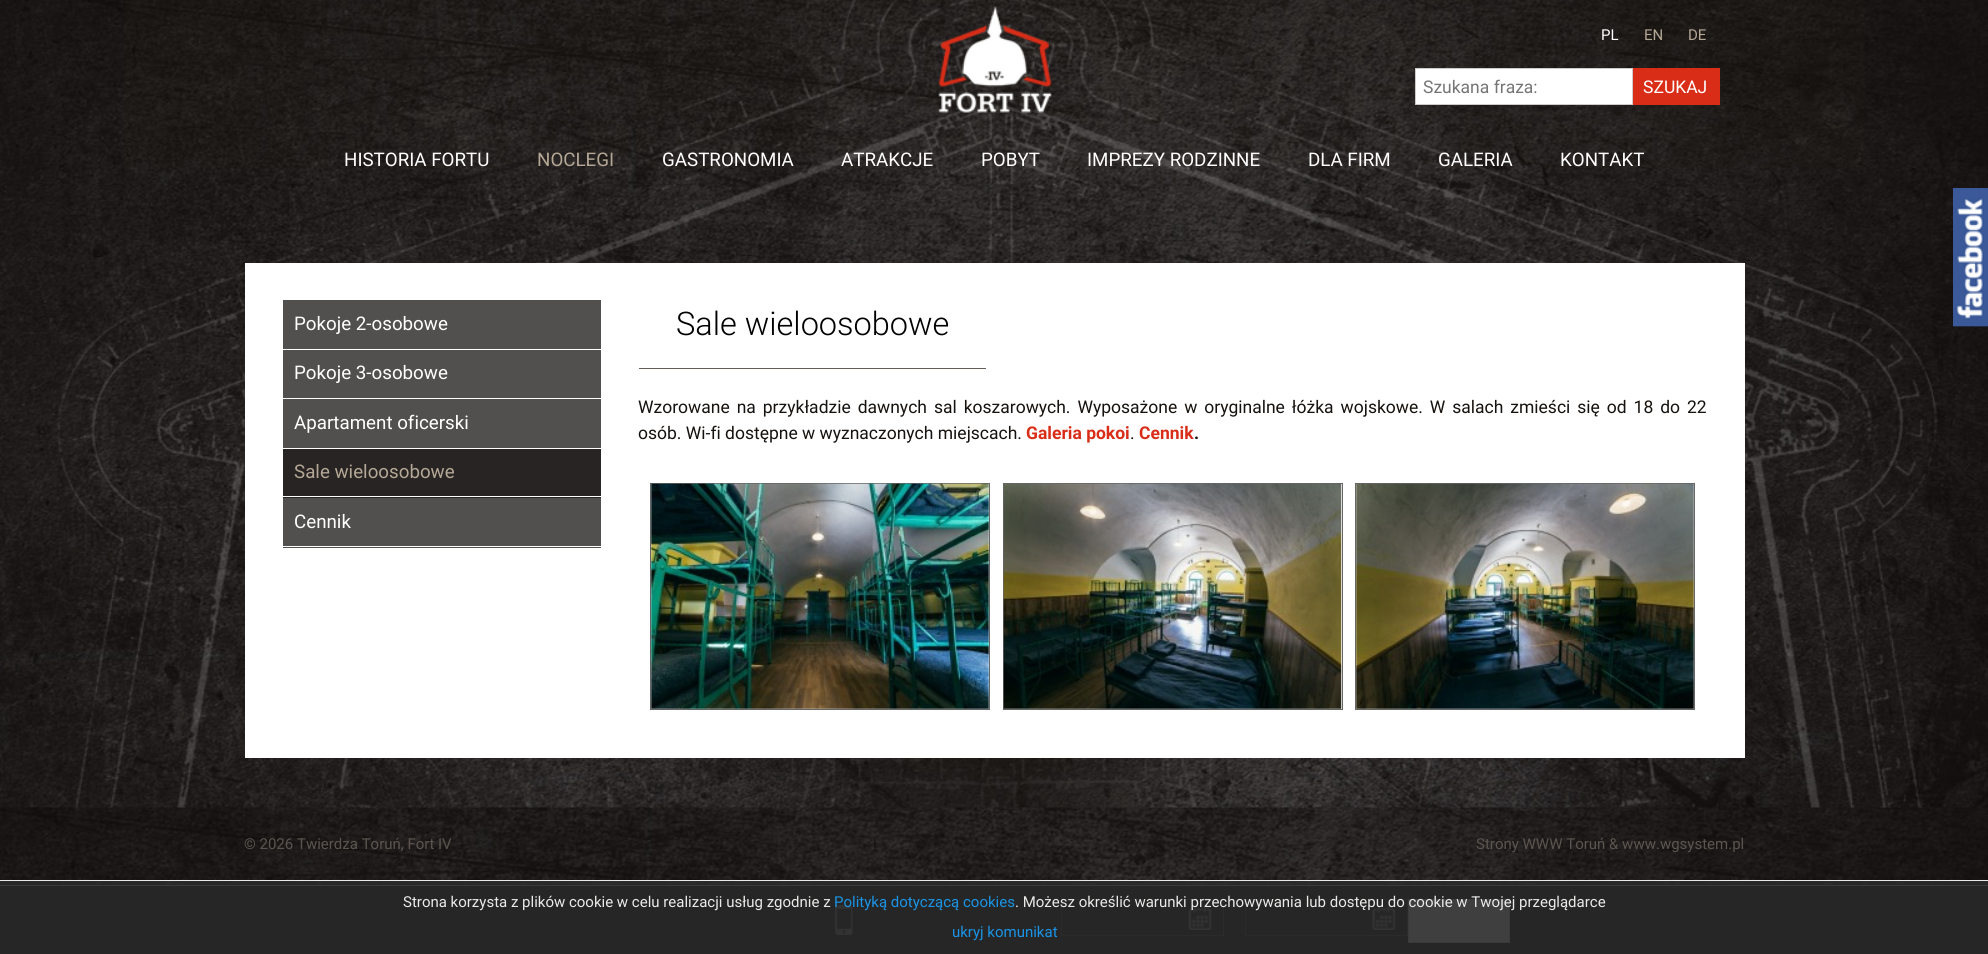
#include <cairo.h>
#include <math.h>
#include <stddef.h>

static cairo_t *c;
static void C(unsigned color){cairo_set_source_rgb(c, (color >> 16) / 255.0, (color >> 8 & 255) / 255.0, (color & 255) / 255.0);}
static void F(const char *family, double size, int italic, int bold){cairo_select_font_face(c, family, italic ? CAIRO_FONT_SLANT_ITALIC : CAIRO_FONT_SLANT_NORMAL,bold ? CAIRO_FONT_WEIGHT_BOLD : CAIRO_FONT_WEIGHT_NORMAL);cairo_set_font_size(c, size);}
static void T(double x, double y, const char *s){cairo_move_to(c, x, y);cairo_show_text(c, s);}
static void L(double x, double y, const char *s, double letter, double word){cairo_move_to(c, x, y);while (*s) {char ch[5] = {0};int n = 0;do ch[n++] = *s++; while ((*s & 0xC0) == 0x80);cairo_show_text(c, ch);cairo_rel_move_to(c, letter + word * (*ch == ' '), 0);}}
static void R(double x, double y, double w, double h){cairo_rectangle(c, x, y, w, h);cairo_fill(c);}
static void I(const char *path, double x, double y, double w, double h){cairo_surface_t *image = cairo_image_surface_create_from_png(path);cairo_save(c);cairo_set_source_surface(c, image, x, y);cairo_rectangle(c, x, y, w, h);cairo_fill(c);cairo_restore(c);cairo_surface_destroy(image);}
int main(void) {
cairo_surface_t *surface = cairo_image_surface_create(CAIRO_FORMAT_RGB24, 1988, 954);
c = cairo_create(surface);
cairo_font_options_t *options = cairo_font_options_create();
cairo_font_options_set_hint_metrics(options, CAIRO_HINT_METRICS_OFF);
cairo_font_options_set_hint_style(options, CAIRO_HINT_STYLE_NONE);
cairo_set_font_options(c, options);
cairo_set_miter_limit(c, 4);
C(0xffffff);
cairo_paint(c);
I("1.png",0,0,1988,885);
I("2.png",938,6,114,107);
F("Roboto",15,0,0);
C(0xffffff);
T(1601,40,"PL");
C(0xb4a795);
T(1644,40,"EN");
T(1688,40,"DE");
C(0xffffff);
cairo_rectangle(c,1415.5,68.5,217,36);
cairo_fill_preserve(c);
C(0xcccccc);
cairo_set_line_width(c,1);
cairo_stroke(c);
F("Roboto",17.5,0,0);
C(0x757575);
T(1423,93,"Szukana fraza:");
C(0xd92d18);
R(1633,68,87,37);
C(0xffffff);
T(1643,93,"SZUKAJ");
F("Roboto",18.75,0,0);
T(344,166,"HISTORIA FORTU");
C(0xb4a795);
T(537,166,"NOCLEGI");
C(0xffffff);
T(662,166,"GASTRONOMIA");
T(841,166,"ATRAKCJE");
T(981,166,"POBYT");
T(1087,166,"IMPREZY RODZINNE");
T(1308,166,"DLA FIRM");
T(1438,166,"GALERIA");
T(1560,166,"KONTAKT");
I("3.png",1953,188,35,139);
R(245,263,1500,495);
C(0x52504f);
R(283,300,318,49);
C(0xffffff);
T(294,330,"Pokoje 2-osobowe");
C(0x52504f);
R(283,350,318,48);
C(0xffffff);
T(294,379,"Pokoje 3-osobowe");
C(0x52504f);
R(283,399,318,49);
C(0xffffff);
T(294,429,"Apartament oficerski");
C(0x272423);
R(283,449,318,49);
C(0xffffff);
R(283,496,318,1);
C(0xb4a795);
T(294,478,"Sale wieloosobowe");
C(0x52504f);
R(283,498,318,50);
C(0xffffff);
R(283,546,318,1);
T(294,528,"Cennik");
C(0x645e5a);
R(639,368,347,1);
F("Roboto Light",32.5,0,0);
C(0x000000);
T(676,335,"Sale wieloosobowe");
F("Roboto",17.5,0,0);
C(0x16120f);
L(638,413,"Wzorowane na przykładzie dawnych sal koszarowych. Wyposażone w oryginalne łóżka wojskowe. W salach zmieści się od 18 do 22",0,2.6);
T(638,439,"osób. Wi-fi dostępne w wyznaczonych miejscach.");
F("Roboto",17.5,0,1);
C(0xd92d18);
T(1026,439,"Galeria pokoi");
F("Roboto",17.5,0,0);
C(0x16120f);
T(1130,439,".");
F("Roboto",17.5,0,1);
C(0xd92d18);
T(1139,439,"Cennik");
C(0x16120f);
T(1194,439,".");
cairo_rectangle(c,650.5,483.5,339,226);
C(0x666666);
cairo_stroke(c);
I("4.png",651,483,338,226);
cairo_rectangle(c,1003.5,483.5,339,226);
cairo_stroke(c);
I("5.png",1003,483,339,226);
cairo_rectangle(c,1355.5,483.5,339,226);
cairo_stroke(c);
I("6.png",1356,483,338,226);
I("7.png",0,807,1988,73);
F("Roboto",15,0,0);
C(0x5c554f);
T(244,849,"© 2026 Twierdza Toruń, Fort IV");
T(1476,849,"Strony WWW Toruń & www.wgsystem.pl");
C(0x000000);
R(0,886,1988,68);
C(0xcccccc);
R(0,885,1988,1);
I("8.png",835,905,18,30);
I("9.png",1188,906,24,24);
cairo_rectangle(c,1061.5,899.5,162,36);
C(0x3b2e29);
cairo_stroke(c);
I("10.png",1372,906,24,24);
cairo_rectangle(c,1245.5,899.5,162,36);
cairo_stroke(c);
C(0xffffff);
cairo_rectangle(c,1408.5,899.5,101,43);
cairo_fill_preserve(c);
C(0xcccccc);
cairo_stroke(c);
cairo_set_source_rgba(c,0.169,0.169,0.165,0.9);
R(0,880,1988,74);
cairo_set_source_rgba(c,1,1,1,0.9);
R(0,880,1988,1);
C(0xeaeae9);
T(403,907,"Strona korzysta z plików cookie w celu realizacji usług zgodnie z");
C(0x1994e6);
T(834,907,"Polityką dotyczącą cookies");
C(0xeaeae9);
T(1015,907,". Możesz określić warunki przechowywania lub dostępu do cookie w Twojej przeglądarce");
C(0x1994e6);
T(952,937,"ukryj komunikat");
cairo_surface_write_to_png(surface, "o.png");
cairo_font_options_destroy(options);
cairo_destroy(c);
cairo_surface_destroy(surface);
return 0;
}
